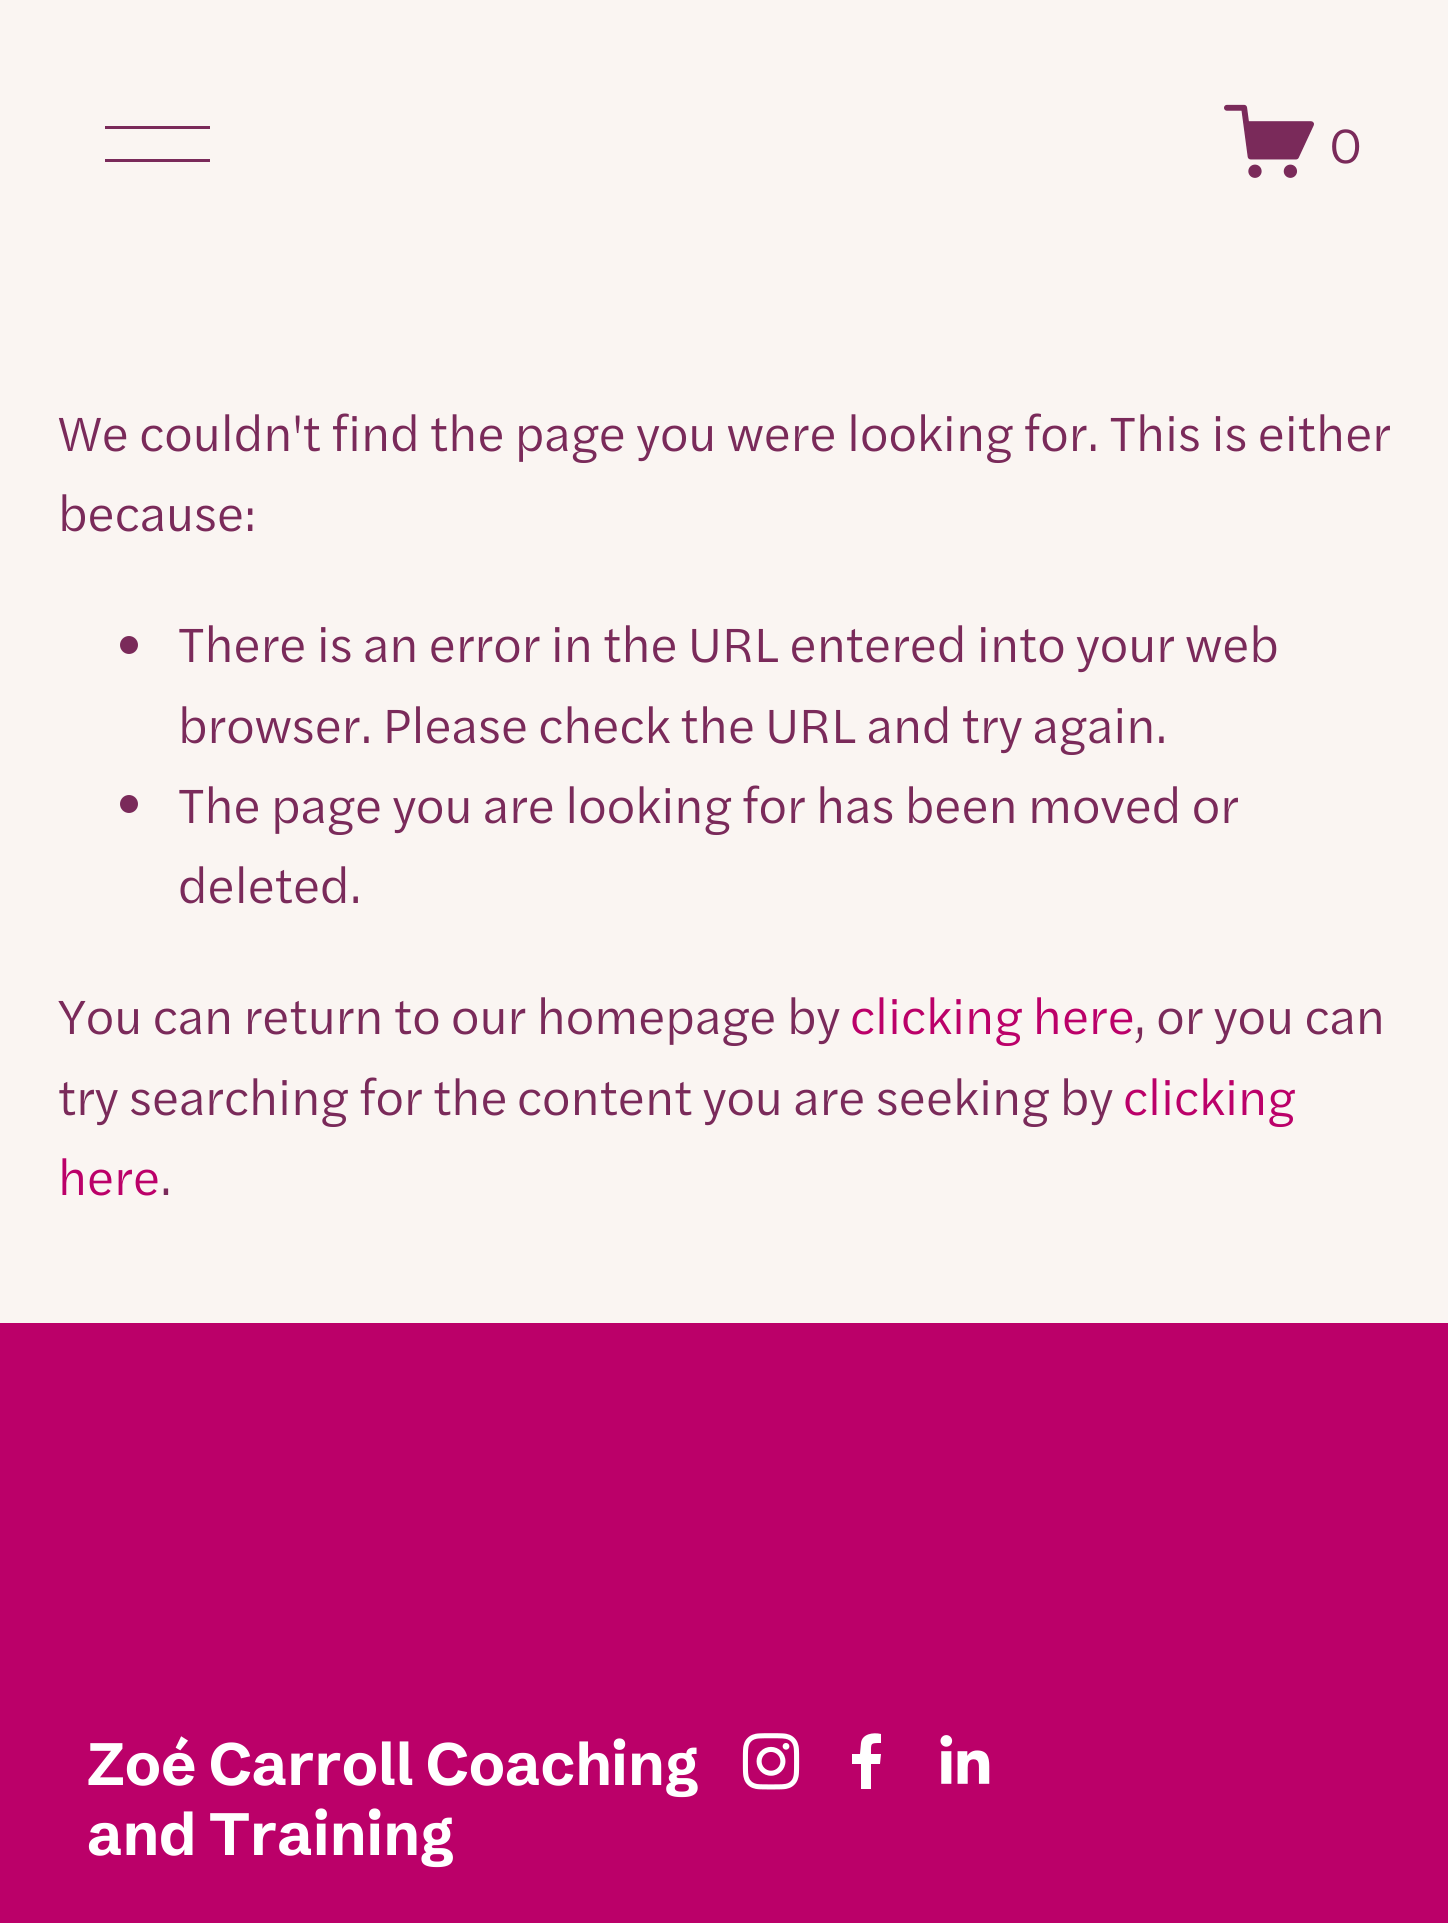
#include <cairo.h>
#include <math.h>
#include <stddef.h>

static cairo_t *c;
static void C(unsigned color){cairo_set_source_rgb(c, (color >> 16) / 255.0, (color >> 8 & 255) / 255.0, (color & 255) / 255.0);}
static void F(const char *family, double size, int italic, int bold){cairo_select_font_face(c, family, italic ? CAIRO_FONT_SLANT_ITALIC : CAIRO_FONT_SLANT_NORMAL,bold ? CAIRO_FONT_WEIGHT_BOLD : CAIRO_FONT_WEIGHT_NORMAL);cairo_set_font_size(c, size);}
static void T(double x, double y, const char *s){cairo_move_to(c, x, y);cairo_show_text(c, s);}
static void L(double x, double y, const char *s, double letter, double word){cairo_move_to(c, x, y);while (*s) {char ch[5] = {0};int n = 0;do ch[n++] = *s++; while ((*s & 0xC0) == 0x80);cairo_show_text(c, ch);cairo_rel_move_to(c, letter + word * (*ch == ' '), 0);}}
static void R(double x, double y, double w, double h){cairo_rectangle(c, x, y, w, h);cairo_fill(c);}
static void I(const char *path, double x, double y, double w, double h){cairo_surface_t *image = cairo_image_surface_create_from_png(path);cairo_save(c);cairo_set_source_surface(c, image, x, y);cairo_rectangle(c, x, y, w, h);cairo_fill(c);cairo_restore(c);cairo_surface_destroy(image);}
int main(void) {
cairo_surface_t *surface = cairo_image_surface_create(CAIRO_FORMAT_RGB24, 1448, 1923);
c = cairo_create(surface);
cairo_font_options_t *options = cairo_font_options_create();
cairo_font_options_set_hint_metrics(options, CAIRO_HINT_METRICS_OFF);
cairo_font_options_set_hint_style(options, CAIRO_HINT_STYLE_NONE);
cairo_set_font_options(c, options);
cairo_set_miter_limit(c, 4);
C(0xfaf5f2);
cairo_paint(c);
C(0x7a2a5a);
R(105,126,105,3);
R(105,159,105,3);
I("1.png",1224,104,90,74);
F("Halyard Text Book",50.3,0,0);
T(1329,163,"0");
L(58,451,"We couldn't find the page you were looking for. This is either",0,-.1);
T(58,531,"because:");
cairo_new_path(c);
cairo_arc(c,129,645,9,0,2 * M_PI);
cairo_fill(c);
L(178,662,"There is an error in the URL entered into your web",0,-.1);
L(178,743,"browser. Please check the URL and try again.",0,-.25);
cairo_new_path(c);
cairo_arc(c,129,804,9,0,2 * M_PI);
cairo_fill(c);
L(178,823,"The page you are looking for has been moved or",0,-.1);
T(178,903,"deleted.");
T(58,1034,"You can return to our homepage by");
C(0xbb0069);
T(850,1034,"clicking here");
C(0x7a2a5a);
T(1134,1034,", or you can");
T(58,1115,"try searching for the");
T(517,1115,"content you are seeking by");
C(0xbb0069);
T(1123,1115,"clicking");
T(58,1195,"here");
C(0x7a2a5a);
T(160,1195,".");
C(0xbb0069);
R(0,1323,1448,600);
F("Schibsted Grotesk",59.5,0,1);
C(0xffffff);
T(87,1785,"Zoé Carroll Coaching");
T(87,1855,"and Training");
I("2.png",742,1733,58,57);
cairo_new_path(c);
cairo_move_to(c,871,1789);
cairo_line_to(c,871,1764);
cairo_line_to(c,880,1764);
cairo_line_to(c,881,1754);
cairo_line_to(c,871,1754);
cairo_curve_to(c,871,1743,870,1743,881,1743);
cairo_line_to(c,881,1734);
cairo_curve_to(c,873,1732,862,1734,861,1743);
cairo_line_to(c,860,1754);
cairo_line_to(c,852,1754);
cairo_line_to(c,852,1764);
cairo_line_to(c,861,1764);
cairo_line_to(c,861,1789);
cairo_close_path(c);
cairo_fill(c);
I("3.png",940,1735,50,49);
cairo_surface_write_to_png(surface, "o.png");
cairo_font_options_destroy(options);
cairo_destroy(c);
cairo_surface_destroy(surface);
return 0;
}
